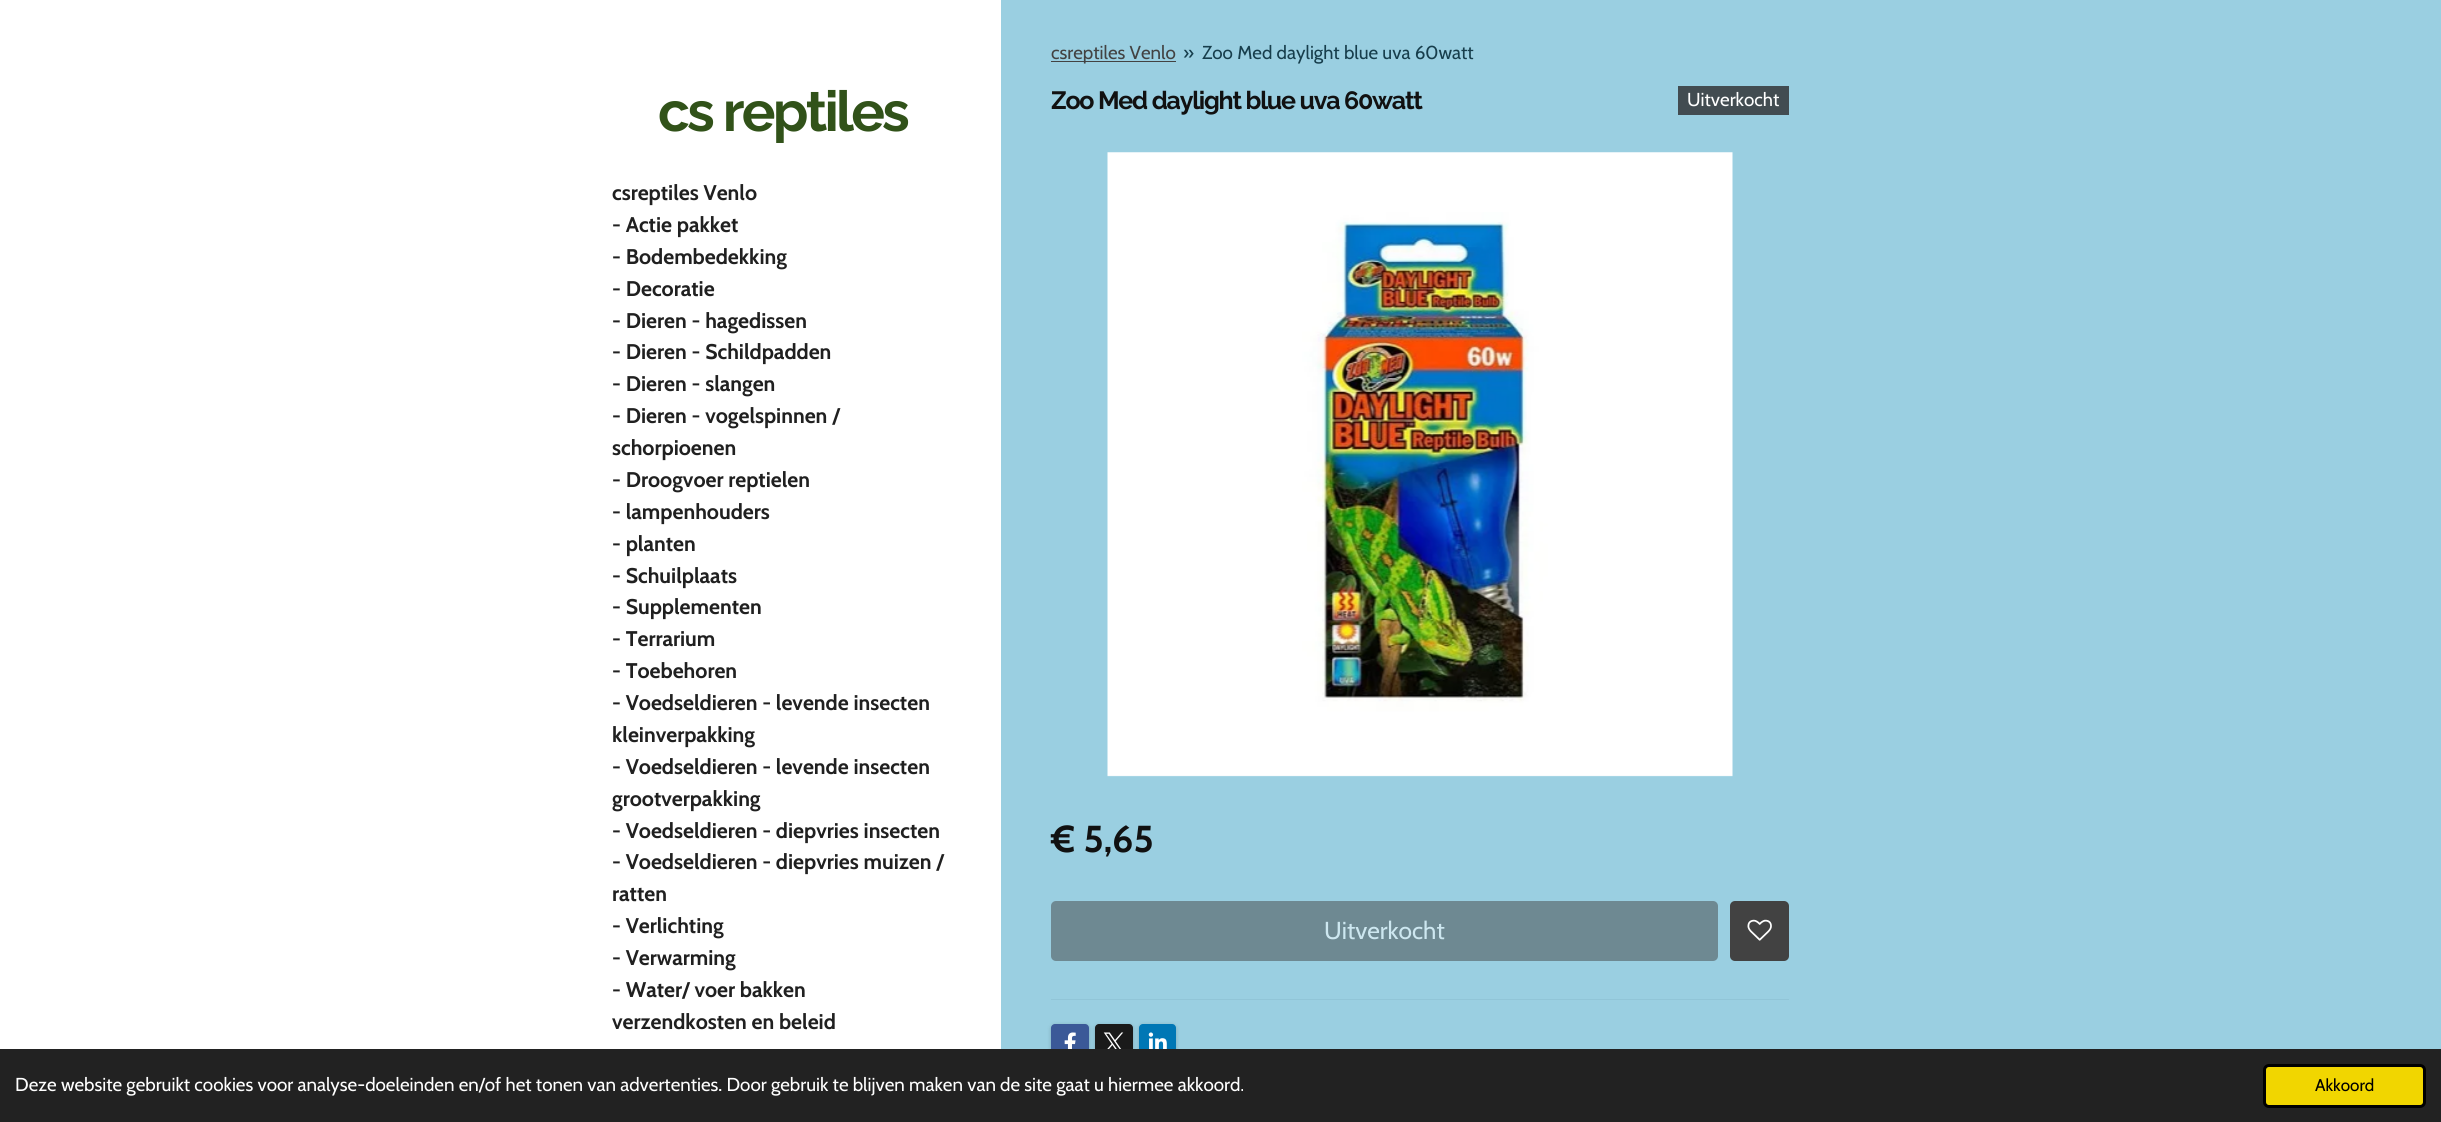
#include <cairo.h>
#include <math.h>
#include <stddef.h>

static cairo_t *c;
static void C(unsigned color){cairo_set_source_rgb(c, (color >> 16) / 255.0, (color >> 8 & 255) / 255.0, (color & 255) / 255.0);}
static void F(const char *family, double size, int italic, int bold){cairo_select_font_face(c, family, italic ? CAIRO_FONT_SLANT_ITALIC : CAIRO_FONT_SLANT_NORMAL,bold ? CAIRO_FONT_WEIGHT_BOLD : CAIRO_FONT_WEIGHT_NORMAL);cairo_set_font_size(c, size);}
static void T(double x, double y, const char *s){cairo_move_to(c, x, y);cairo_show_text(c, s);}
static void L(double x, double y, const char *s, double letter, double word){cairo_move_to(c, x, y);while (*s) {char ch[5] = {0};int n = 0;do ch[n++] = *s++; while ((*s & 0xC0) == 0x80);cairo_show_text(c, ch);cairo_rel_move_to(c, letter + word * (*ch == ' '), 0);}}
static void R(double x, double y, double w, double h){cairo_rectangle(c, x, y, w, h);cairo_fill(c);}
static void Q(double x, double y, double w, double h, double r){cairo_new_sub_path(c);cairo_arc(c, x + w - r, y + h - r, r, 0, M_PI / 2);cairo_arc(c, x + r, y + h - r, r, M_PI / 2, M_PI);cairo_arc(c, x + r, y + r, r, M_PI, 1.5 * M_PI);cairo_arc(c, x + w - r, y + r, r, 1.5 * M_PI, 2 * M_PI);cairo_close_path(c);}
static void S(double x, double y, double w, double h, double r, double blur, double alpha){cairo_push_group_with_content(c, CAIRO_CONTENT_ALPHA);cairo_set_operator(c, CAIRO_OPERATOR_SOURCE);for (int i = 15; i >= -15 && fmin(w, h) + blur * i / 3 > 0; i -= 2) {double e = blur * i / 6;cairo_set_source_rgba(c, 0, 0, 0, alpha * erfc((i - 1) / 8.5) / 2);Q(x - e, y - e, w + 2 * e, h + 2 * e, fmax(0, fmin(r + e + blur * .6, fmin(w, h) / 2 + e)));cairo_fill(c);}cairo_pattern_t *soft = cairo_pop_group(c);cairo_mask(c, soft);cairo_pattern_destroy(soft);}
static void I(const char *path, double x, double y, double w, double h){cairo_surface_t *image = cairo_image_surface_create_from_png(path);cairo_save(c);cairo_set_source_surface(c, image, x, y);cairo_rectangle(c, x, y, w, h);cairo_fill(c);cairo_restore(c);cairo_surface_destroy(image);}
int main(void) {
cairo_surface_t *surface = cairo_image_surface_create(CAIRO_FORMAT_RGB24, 2441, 1122);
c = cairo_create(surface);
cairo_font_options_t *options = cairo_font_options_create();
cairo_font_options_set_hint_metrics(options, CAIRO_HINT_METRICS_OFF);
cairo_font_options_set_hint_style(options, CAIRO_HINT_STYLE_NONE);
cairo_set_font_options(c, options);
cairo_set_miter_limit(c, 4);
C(0x9acfe1);
cairo_paint(c);
C(0xffffff);
R(0,0,1001,1049);
F("Raleway",56.25,0,1);
C(0x315219);
L(658,131,"cs reptiles",-2.75,0);
F("Cabin",21.25,0,1);
C(0x202020);
T(612,200,"csreptiles Venlo");
T(612,232,"- Actie pakket");
T(612,264,"- Bodembedekking");
T(612,296,"- Decoratie");
T(612,328,"- Dieren - hagedissen");
T(612,359,"- Dieren - Schildpadden");
T(612,391,"- Dieren - slangen");
T(612,423,"- Dieren - vogelspinnen /");
T(612,455,"schorpioenen");
T(612,487,"- Droogvoer reptielen");
T(612,519,"- lampenhouders");
T(612,551,"- planten");
T(612,583,"- Schuilplaats");
T(612,614,"- Supplementen");
T(612,646,"- Terrarium");
T(612,678,"- Toebehoren");
T(612,710,"- Voedseldieren - levende insecten");
T(612,742,"kleinverpakking");
T(612,774,"- Voedseldieren - levende insecten");
T(612,806,"grootverpakking");
T(612,838,"- Voedseldieren - diepvries insecten");
T(612,869,"- Voedseldieren - diepvries muizen /");
T(612,901,"ratten");
T(612,933,"- Verlichting");
T(612,965,"- Verwarming");
T(612,997,"- Water/ voer bakken");
T(612,1029,"verzendkosten en beleid");
C(0x424242);
R(1051,61,125,1);
F("Cabin",18.75,0,0);
T(1051,59,"csreptiles Venlo");
C(0x173e4c);
T(1183,59,"»");
T(1202,59,"Zoo Med daylight blue uva 60watt");
F("Raleway",25,0,1);
C(0x111111);
L(1051,109,"Zoo Med daylight blue uva 60watt",-1.25,0);
C(0x424c51);
R(1678,86,111,29);
F("Cabin",18.75,0,0);
C(0xffffff);
T(1687,106,"Uitverkocht");
I("1.png",1107,152,626,625);
F("Cabin",37.5,0,1);
C(0x111111);
T(1051,852,"€ 5,65");
C(0x6e8992);
Q(1051,901,667,60,5);
cairo_fill(c);
F("Cabin",24.5,0,0);
C(0xcde7f0);
T(1324,939,"Uitverkocht");
C(0x424242);
Q(1730,901,59,60,5);
cairo_fill(c);
I("2.png",1747,919,25,22);
C(0x91c5d7);
R(1051,999,738,1);
C(0x000000);
S(1051,1025,38,38,4,2,.2);
C(0x3b5998);
Q(1051,1024,38,37,4);
cairo_fill(c);
I("3.png",1064,1032,12,17);
C(0x000000);
S(1095,1025,38,38,4,2,.2);
C(0x1a1a1a);
Q(1095,1024,38,37,4);
cairo_fill(c);
I("4.png",1103,1032,21,17);
C(0x000000);
S(1139,1025,37,38,4,2,.2);
C(0x0077b5);
Q(1139,1024,37,37,4);
cairo_fill(c);
I("5.png",1148,1032,19,17);
C(0x222222);
R(0,1049,2441,73);
F("Cabin",18.75,0,0);
C(0xffffff);
T(15,1091,"Deze website gebruikt cookies voor analyse-doeleinden en/of het tonen van advertenties. Door gebruik te blijven maken van de site gaat u hiermee akkoord.");
C(0xf1d600);
Q(2264.5,1065.5,160,41,4.5);
cairo_fill_preserve(c);
C(0x000000);
cairo_set_line_width(c,3);
cairo_stroke(c);
F("Cabin",17,0,0);
T(2315,1091,"Akkoord");
cairo_surface_write_to_png(surface, "o.png");
cairo_font_options_destroy(options);
cairo_destroy(c);
cairo_surface_destroy(surface);
return 0;
}
